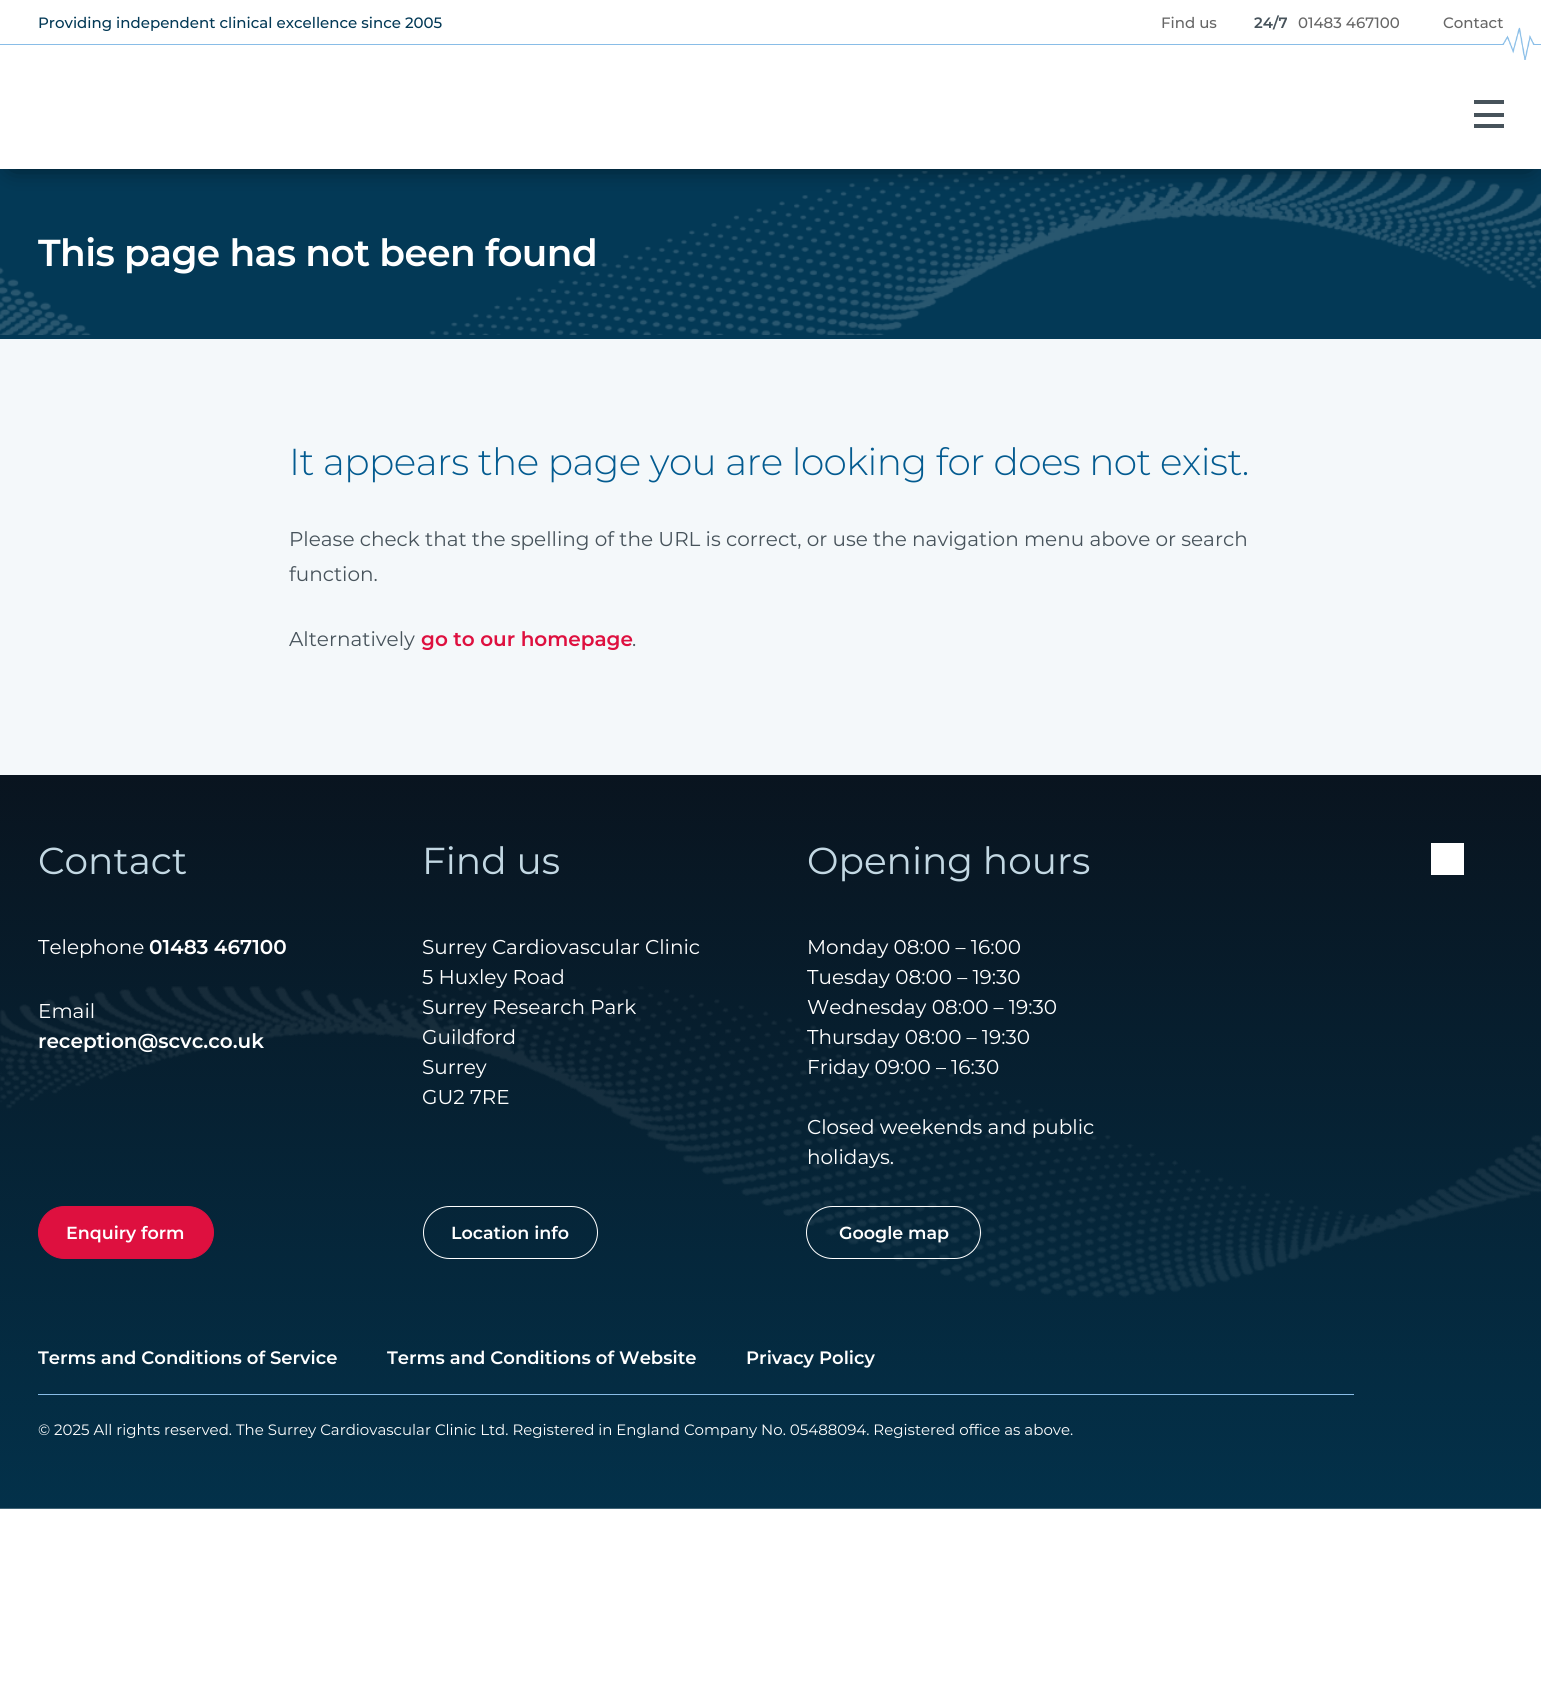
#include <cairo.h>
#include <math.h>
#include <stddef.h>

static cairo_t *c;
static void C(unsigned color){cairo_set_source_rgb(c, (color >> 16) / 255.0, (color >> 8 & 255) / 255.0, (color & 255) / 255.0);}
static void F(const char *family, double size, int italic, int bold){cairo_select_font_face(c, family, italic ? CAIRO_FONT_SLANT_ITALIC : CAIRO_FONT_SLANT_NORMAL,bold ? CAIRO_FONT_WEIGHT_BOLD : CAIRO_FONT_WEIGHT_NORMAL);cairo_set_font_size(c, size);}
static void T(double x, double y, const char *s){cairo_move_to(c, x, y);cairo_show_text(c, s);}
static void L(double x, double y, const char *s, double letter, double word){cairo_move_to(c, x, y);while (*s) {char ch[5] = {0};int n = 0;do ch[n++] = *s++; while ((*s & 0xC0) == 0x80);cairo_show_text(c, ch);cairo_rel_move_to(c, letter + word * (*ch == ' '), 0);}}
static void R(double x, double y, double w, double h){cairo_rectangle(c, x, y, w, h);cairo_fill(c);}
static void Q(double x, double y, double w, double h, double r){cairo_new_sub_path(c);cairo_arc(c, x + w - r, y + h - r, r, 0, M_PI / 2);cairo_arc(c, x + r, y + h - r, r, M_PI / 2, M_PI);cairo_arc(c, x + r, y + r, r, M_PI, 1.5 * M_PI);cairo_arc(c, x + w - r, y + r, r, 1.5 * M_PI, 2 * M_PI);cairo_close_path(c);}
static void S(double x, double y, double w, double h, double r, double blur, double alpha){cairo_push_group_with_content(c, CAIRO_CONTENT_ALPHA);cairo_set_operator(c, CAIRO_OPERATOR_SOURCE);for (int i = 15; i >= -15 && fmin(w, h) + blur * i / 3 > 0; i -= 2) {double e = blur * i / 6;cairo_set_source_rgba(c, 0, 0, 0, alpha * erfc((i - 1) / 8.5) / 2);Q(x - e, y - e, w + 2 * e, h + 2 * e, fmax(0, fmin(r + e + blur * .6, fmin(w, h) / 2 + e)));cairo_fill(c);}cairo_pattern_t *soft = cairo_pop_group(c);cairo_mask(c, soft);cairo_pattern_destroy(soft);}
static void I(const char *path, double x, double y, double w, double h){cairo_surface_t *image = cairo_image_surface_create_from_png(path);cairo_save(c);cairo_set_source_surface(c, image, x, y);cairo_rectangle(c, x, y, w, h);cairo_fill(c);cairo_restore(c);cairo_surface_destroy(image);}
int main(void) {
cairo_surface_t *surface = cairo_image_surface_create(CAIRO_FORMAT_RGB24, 1541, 1685);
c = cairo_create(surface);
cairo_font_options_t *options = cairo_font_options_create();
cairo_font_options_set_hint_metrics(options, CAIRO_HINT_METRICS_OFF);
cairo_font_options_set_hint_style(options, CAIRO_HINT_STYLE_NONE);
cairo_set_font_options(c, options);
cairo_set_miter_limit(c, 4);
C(0xffffff);
cairo_paint(c);
C(0x033956);
R(0,169,1541,170);
I("2.png",0,171,1541,164);
C(0x000000);
S(13,20,1516,144,0,12.5,.7);
C(0xffffff);
R(0,0,1541,169);
F("Montserrat Medium",15,0,0);
C(0x033956);
T(38,28,"Providing independent clinical excellence since 2005");
C(0x666666);
T(1161,28,"Find us");
F("Montserrat SemiBold",15,0,0);
C(0x47535b);
T(1254,28,"24/7");
F("Montserrat Medium",15,0,0);
C(0x666666);
T(1298,28,"01483 467100");
T(1443,28,"Contact");
C(0x89bde7);
R(0,44,1541,1);
C(0xffffff);
R(1503,44,32,1);
I("1.png",1502,27,33,33);
C(0x47535b);
R(1474,100,30,4);
R(1474,124,30,4);
R(1474,113,30,4);
F("Montserrat SemiBold",37.5,0,0);
C(0xffffff);
L(38,266,"This page has not been found",-.55,0);
C(0xf4f8fa);
R(0,339,1541,436);
F("Montserrat Light",37.5,0,0);
C(0x035b90);
L(289,475,"It appears the page you are looking for does not exist.",-.55,0);
F("Montserrat",20,0,0);
C(0x47535b);
T(289,546,"Please check that the spelling of the URL is correct, or use the navigation menu above or search");
T(289,581,"function.");
T(289,646,"Alternatively");
F("Montserrat SemiBold",20,0,0);
C(0xde103f);
T(421,646,"go to our homepage");
F("Montserrat",20,0,0);
C(0x47535b);
T(632,646,".");
I("3.png",0,775,1541,734);
F("Montserrat",37.5,0,0);
C(0xc3d8e3);
T(38,874,"Contact");
F("Montserrat",20,0,0);
C(0xffffff);
T(38,954,"Telephone");
F("Montserrat SemiBold",20,0,0);
T(149,954,"01483 467100");
F("Montserrat",20,0,0);
T(38,1018,"Email");
F("Montserrat SemiBold",20,0,0);
T(38,1048,"reception@scvc.co.uk");
C(0xde103f);
Q(38.5,1206.5,175,52,26);
cairo_fill_preserve(c);
cairo_set_line_width(c,1);
cairo_stroke(c);
F("Montserrat SemiBold",17.5,0,0);
C(0xffffff);
T(66,1239,"Enquiry form");
F("Montserrat",37.5,0,0);
C(0xc3d8e3);
T(422,874,"Find us");
F("Montserrat",20,0,0);
C(0xffffff);
T(422,954,"Surrey Cardiovascular Clinic");
T(422,984,"5 Huxley Road");
T(422,1014,"Surrey Research Park");
T(422,1044,"Guildford");
T(422,1074,"Surrey");
T(422,1104,"GU2 7RE");
Q(423.5,1206.5,174,52,26);
cairo_stroke(c);
F("Montserrat SemiBold",17.5,0,0);
T(451,1239,"Location info");
F("Montserrat",37.5,0,0);
C(0xc3d8e3);
T(807,874,"Opening hours");
F("Montserrat",20,0,0);
C(0xffffff);
T(807,954,"Monday 08:00 – 16:00");
T(807,984,"Tuesday 08:00 – 19:30");
T(807,1014,"Wednesday 08:00 – 19:30");
T(807,1044,"Thursday 08:00 – 19:30");
T(807,1074,"Friday 09:00 – 16:30");
T(807,1134,"Closed weekends and public");
T(807,1164,"holidays.");
Q(806.5,1206.5,174,52,26);
cairo_stroke(c);
F("Montserrat SemiBold",17.5,0,0);
T(839,1239,"Google map");
R(1431,843,33,32);
C(0x89bde7);
R(38,1394,1316,1);
F("Montserrat SemiBold",18,0,0);
C(0xffffff);
T(38,1364,"Terms and Conditions of Service");
T(387,1364,"Terms and Conditions of Website");
T(746,1364,"Privacy Policy");
F("Montserrat",15,0,0);
T(38,1435,"© 2025 All rights reserved. The Surrey Cardiovascular Clinic Ltd. Registered in England Company No. 05488094. Registered office as above.");
cairo_surface_write_to_png(surface, "o.png");
cairo_font_options_destroy(options);
cairo_destroy(c);
cairo_surface_destroy(surface);
return 0;
}
